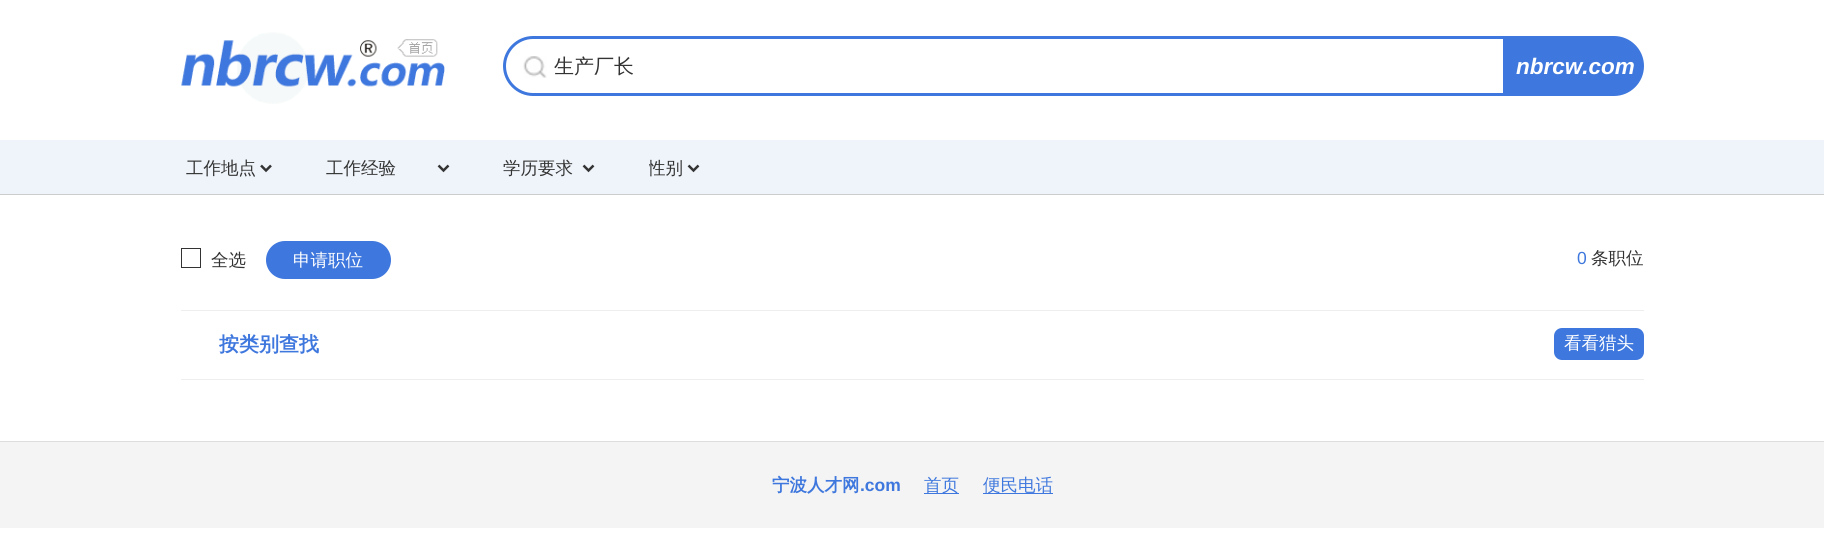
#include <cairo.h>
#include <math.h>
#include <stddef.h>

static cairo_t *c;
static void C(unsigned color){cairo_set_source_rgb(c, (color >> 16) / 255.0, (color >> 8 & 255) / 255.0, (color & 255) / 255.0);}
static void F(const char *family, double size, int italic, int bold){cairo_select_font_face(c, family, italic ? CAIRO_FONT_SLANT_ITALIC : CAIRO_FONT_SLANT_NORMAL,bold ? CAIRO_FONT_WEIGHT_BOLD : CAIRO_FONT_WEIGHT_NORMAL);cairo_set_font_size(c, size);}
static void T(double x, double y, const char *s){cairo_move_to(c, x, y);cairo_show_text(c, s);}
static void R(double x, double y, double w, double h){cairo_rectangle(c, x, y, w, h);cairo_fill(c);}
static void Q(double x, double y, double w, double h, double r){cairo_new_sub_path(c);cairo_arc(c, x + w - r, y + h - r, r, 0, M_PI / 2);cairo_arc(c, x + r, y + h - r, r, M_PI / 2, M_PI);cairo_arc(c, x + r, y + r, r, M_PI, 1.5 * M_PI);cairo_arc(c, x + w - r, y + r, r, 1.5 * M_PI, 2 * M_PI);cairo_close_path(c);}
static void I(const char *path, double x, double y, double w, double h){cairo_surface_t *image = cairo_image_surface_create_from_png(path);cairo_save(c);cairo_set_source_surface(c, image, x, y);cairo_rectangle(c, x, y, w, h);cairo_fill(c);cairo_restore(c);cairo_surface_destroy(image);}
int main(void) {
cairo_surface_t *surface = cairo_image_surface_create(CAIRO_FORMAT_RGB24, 1824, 554);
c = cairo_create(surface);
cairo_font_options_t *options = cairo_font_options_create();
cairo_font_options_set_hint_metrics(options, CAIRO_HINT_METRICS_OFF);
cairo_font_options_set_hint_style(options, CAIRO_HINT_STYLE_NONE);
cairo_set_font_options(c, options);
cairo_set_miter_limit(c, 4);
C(0xffffff);
cairo_paint(c);
I("1.png",181,32,264,72);
I("2.png",523,56,24,22);
cairo_new_path(c);
cairo_move_to(c,533,37.5);
cairo_line_to(c,1504.5,37.5);
cairo_line_to(c,1504.5,94.5);
cairo_line_to(c,533,94.5);
cairo_curve_to(c,517.5,94.5,504.5,81.5,504.5,66);
cairo_curve_to(c,504.5,50.5,517.5,37.5,533,37.5);
cairo_close_path(c);
C(0x3e77dd);
cairo_set_line_width(c,3);
cairo_stroke(c);
F("WenQuanYi Zen Hei Medium",20,0,0);
C(0x333333);
T(554,73,"生产厂长");
C(0x3e77dd);
cairo_new_path(c);
cairo_move_to(c,1506,36);
cairo_line_to(c,1614,36);
cairo_curve_to(c,1630.5,36,1644,49.5,1644,66);
cairo_curve_to(c,1644,82.5,1630.5,96,1614,96);
cairo_line_to(c,1506,96);
cairo_close_path(c);
cairo_fill(c);
F("Liberation Sans",22.5,1,1);
C(0xffffff);
T(1516,74,"nbrcw.com");
C(0xeff4fa);
R(0,140,1824,54);
C(0xcccccc);
R(0,194,1824,1);
cairo_new_path(c);
cairo_move_to(c,261,165.5);
cairo_line_to(c,266,170.5);
cairo_line_to(c,271,165.5);
C(0x333333);
cairo_set_line_width(c,2.5);
cairo_stroke(c);
F("WenQuanYi Zen Hei Medium",17.5,0,0);
T(186,174,"工作地点");
cairo_new_path(c);
cairo_move_to(c,438.5,165.5);
cairo_line_to(c,443.5,170.5);
cairo_line_to(c,448.5,165.5);
cairo_stroke(c);
T(326,174,"工作经验");
cairo_new_path(c);
cairo_move_to(c,583.5,165.5);
cairo_line_to(c,588.5,170.5);
cairo_line_to(c,593.5,165.5);
cairo_stroke(c);
T(503,174,"学历要求");
cairo_new_path(c);
cairo_move_to(c,688.5,165.5);
cairo_line_to(c,693.5,170.5);
cairo_line_to(c,698.5,165.5);
cairo_stroke(c);
cairo_save(c);
cairo_rectangle(c,649,156,35,23);
cairo_clip(c);
T(648,174,"性别");
cairo_restore(c);
C(0xeeeeee);
R(181,310,1463,1);
cairo_rectangle(c,181.5,248.5,19,19);
C(0x333333);
cairo_set_line_width(c,1);
cairo_stroke(c);
T(211,266,"全选");
C(0x3e77dd);
Q(266,241,125,38,19);
cairo_fill(c);
C(0xffffff);
T(293,266,"申请职位");
F("Liberation Sans",17.5,0,0);
C(0x3e77dd);
T(1577,264,"0");
F("WenQuanYi Zen Hei Medium",17.5,0,0);
C(0x333333);
T(1591,264,"条职位");
C(0xeeeeee);
R(181,379,1463,1);
F("WenQuanYi Zen Hei",20,0,1);
C(0x3e77dd);
T(219,351,"按类别查找");
Q(1554,328,90,32,8);
cairo_fill(c);
F("WenQuanYi Zen Hei Medium",17.5,0,0);
C(0xffffff);
T(1564,349,"看看猎头");
C(0xf4f4f4);
R(0,442,1824,86);
C(0xdddddd);
R(0,441,1824,1);
F("WenQuanYi Zen Hei",17.5,0,1);
C(0x3e77dd);
T(772,491,"宁波人才网");
F("Liberation Sans",17.5,0,1);
T(860,491,".com");
R(924,493,35,1);
F("WenQuanYi Zen Hei Medium",17.5,0,0);
T(924,491,"首页");
R(983,493,70,1);
T(983,491,"便民电话");
cairo_surface_write_to_png(surface, "o.png");
cairo_font_options_destroy(options);
cairo_destroy(c);
cairo_surface_destroy(surface);
return 0;
}
